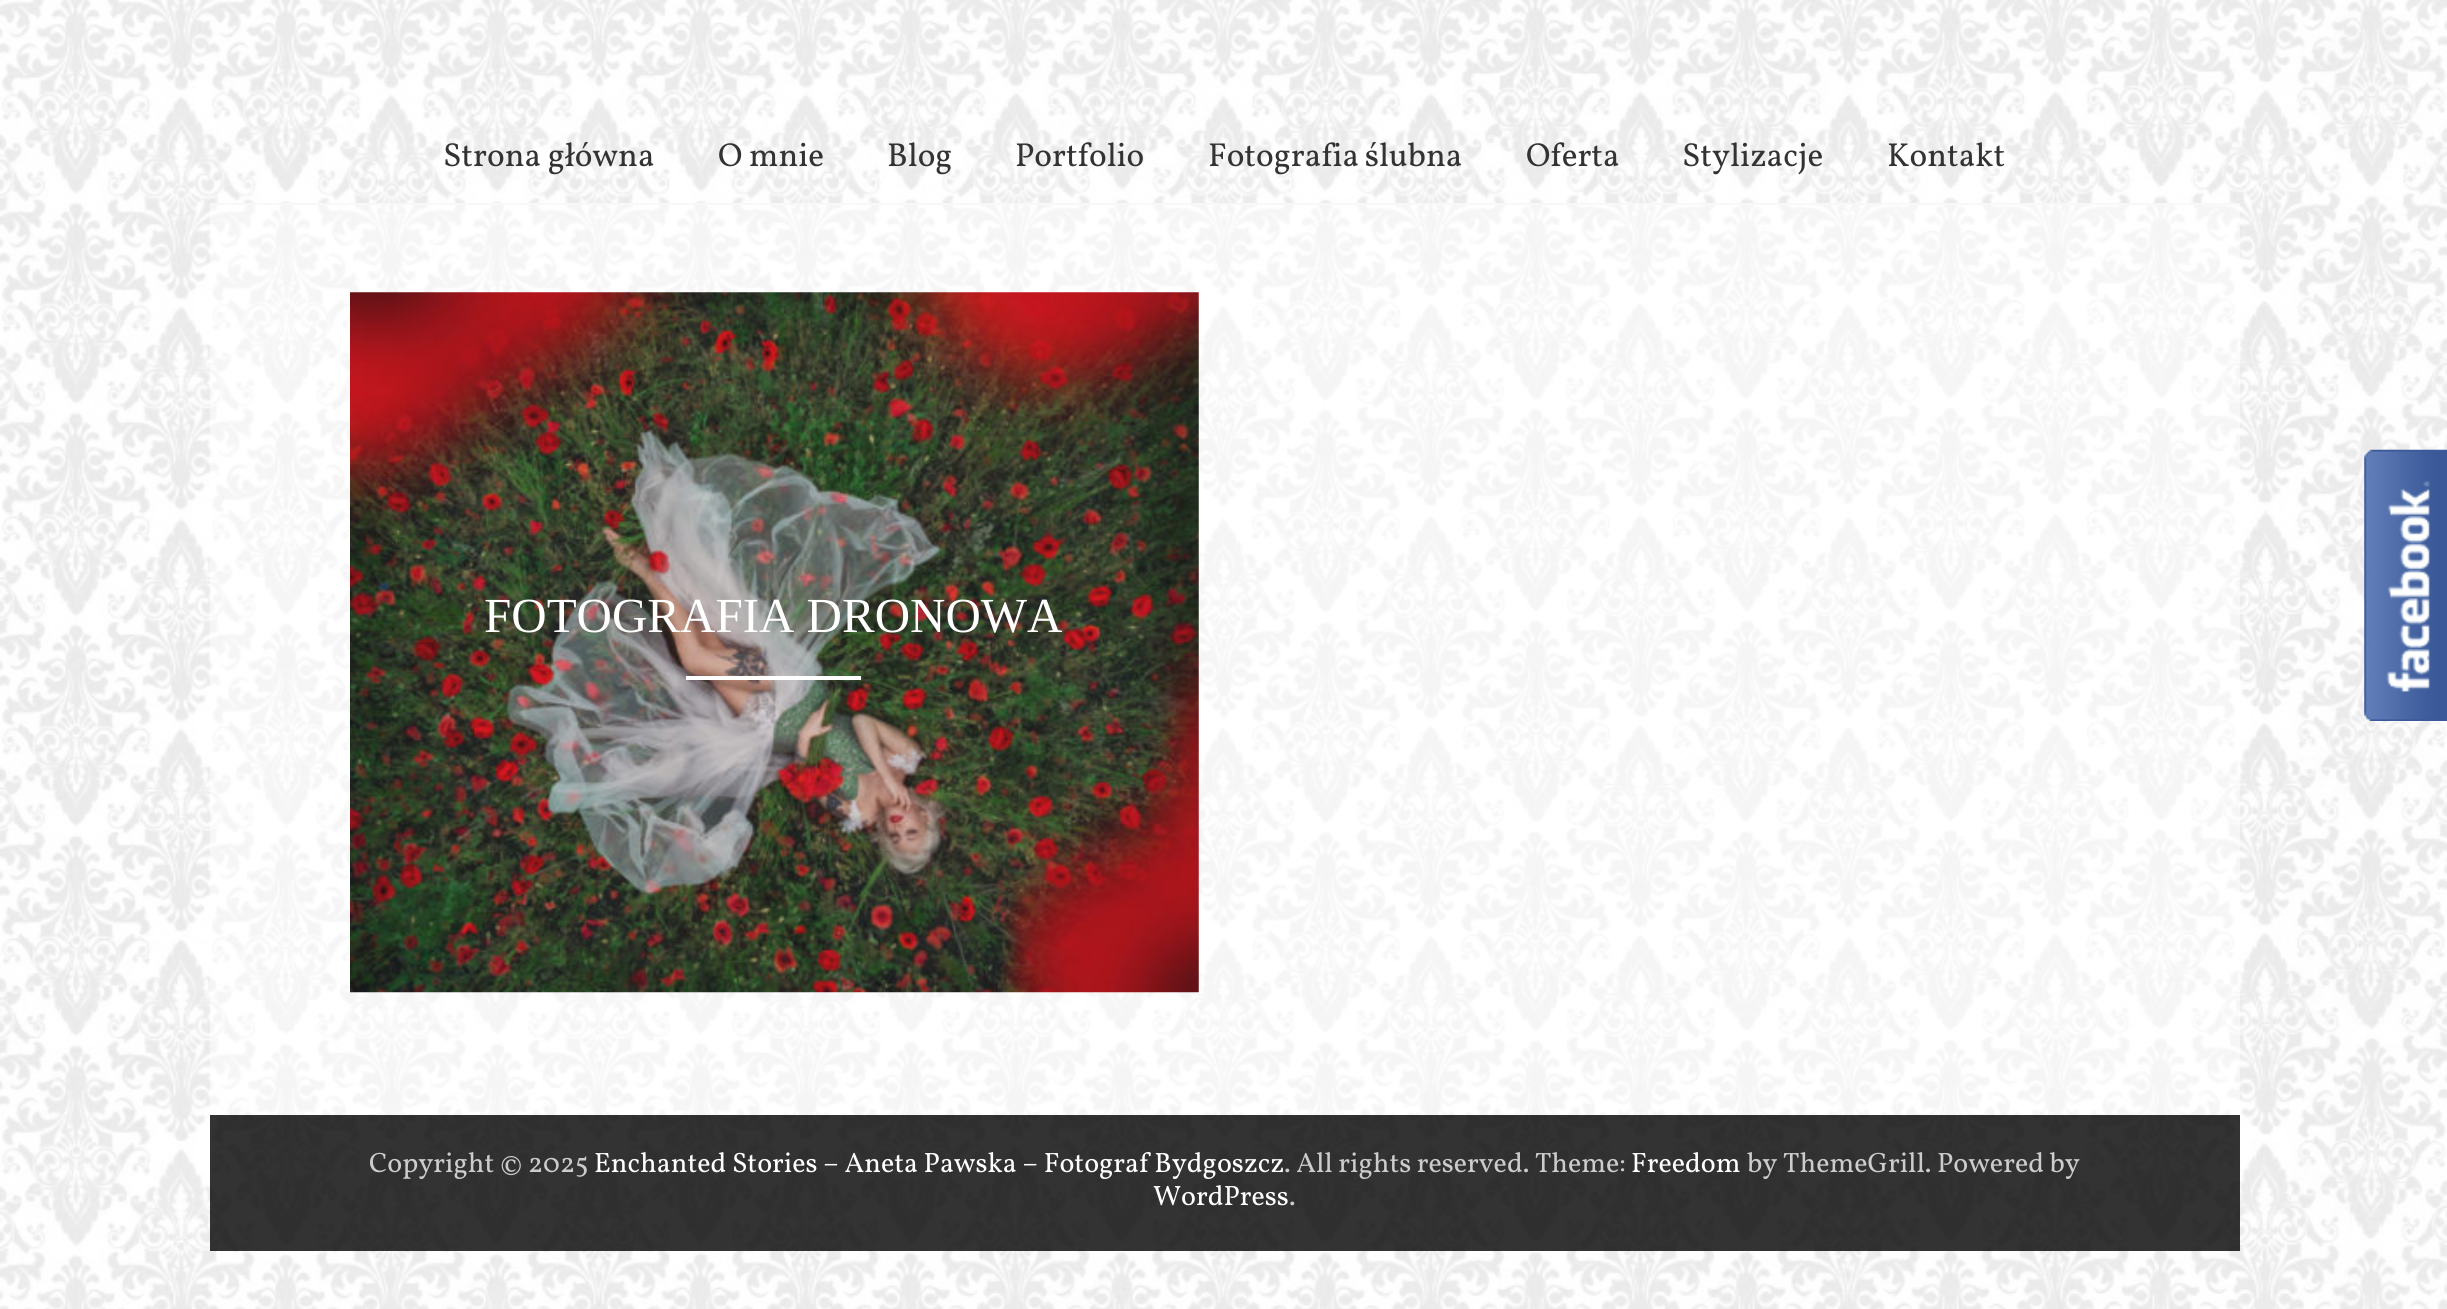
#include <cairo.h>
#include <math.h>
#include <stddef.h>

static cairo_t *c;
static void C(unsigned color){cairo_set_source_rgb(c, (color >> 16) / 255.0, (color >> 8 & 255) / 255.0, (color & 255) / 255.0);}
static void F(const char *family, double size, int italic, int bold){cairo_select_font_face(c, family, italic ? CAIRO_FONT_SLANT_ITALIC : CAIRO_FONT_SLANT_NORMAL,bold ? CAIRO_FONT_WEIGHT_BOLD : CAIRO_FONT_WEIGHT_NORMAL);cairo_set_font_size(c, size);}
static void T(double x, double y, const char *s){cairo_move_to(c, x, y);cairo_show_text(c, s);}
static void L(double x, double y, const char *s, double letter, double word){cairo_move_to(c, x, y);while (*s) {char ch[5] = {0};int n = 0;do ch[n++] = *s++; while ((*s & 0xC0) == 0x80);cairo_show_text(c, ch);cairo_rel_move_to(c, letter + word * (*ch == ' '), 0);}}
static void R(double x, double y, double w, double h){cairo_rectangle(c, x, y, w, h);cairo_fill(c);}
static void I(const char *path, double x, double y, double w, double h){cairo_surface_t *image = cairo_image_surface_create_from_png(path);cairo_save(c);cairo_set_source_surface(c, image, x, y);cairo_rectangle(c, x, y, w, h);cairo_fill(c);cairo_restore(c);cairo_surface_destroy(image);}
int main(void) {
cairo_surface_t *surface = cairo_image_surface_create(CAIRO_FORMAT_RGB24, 2447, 1309);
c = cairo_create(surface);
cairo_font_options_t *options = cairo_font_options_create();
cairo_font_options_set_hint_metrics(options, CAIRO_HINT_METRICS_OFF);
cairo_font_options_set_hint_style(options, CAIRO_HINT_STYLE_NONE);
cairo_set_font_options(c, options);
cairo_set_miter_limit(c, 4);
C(0xffffff);
cairo_paint(c);
I("1.png",0,0,2447,1309);
C(0xf8f8f8);
R(210,203,2030,2);
F("Vollkorn",33.25,0,0);
C(0x333333);
T(443,166,"Strona główna");
T(718,166,"O mnie");
T(887,166,"Blog");
T(1015,166,"Portfolio");
L(1208,166,"Fotografia ślubna",0,-1);
T(1526,166,"Oferta");
T(1682,166,"Stylizacje");
T(1887,166,"Kontakt");
cairo_set_source_rgba(c,1,1,1,0.5);
R(210,205,2030,910);
I("2.png",350,292,849,701);
F("Liberation Serif",49,0,0);
C(0xffffff);
T(484,632,"FOTOGRAFIA DRONOWA");
R(686,676,175,4);
cairo_set_source_rgba(c,0,0,0,0.8);
R(210,1115,2030,136);
F("Vollkorn",28,0,0);
C(0xcccccc);
T(369,1172,"Copyright © 2025");
C(0xffffff);
T(594,1172,"Enchanted Stories – Aneta Pawska – Fotograf Bydgoszcz");
C(0xcccccc);
T(1284,1172,". All rights reserved. Theme:");
C(0xffffff);
T(1631,1172,"Freedom");
C(0xcccccc);
T(1747,1172,"by ThemeGrill. Powered by");
C(0xffffff);
T(1153,1205,"WordPress");
C(0xcccccc);
T(1289,1205,".");
I("3.png",2364,449,83,272);
cairo_surface_write_to_png(surface, "o.png");
cairo_font_options_destroy(options);
cairo_destroy(c);
cairo_surface_destroy(surface);
return 0;
}
